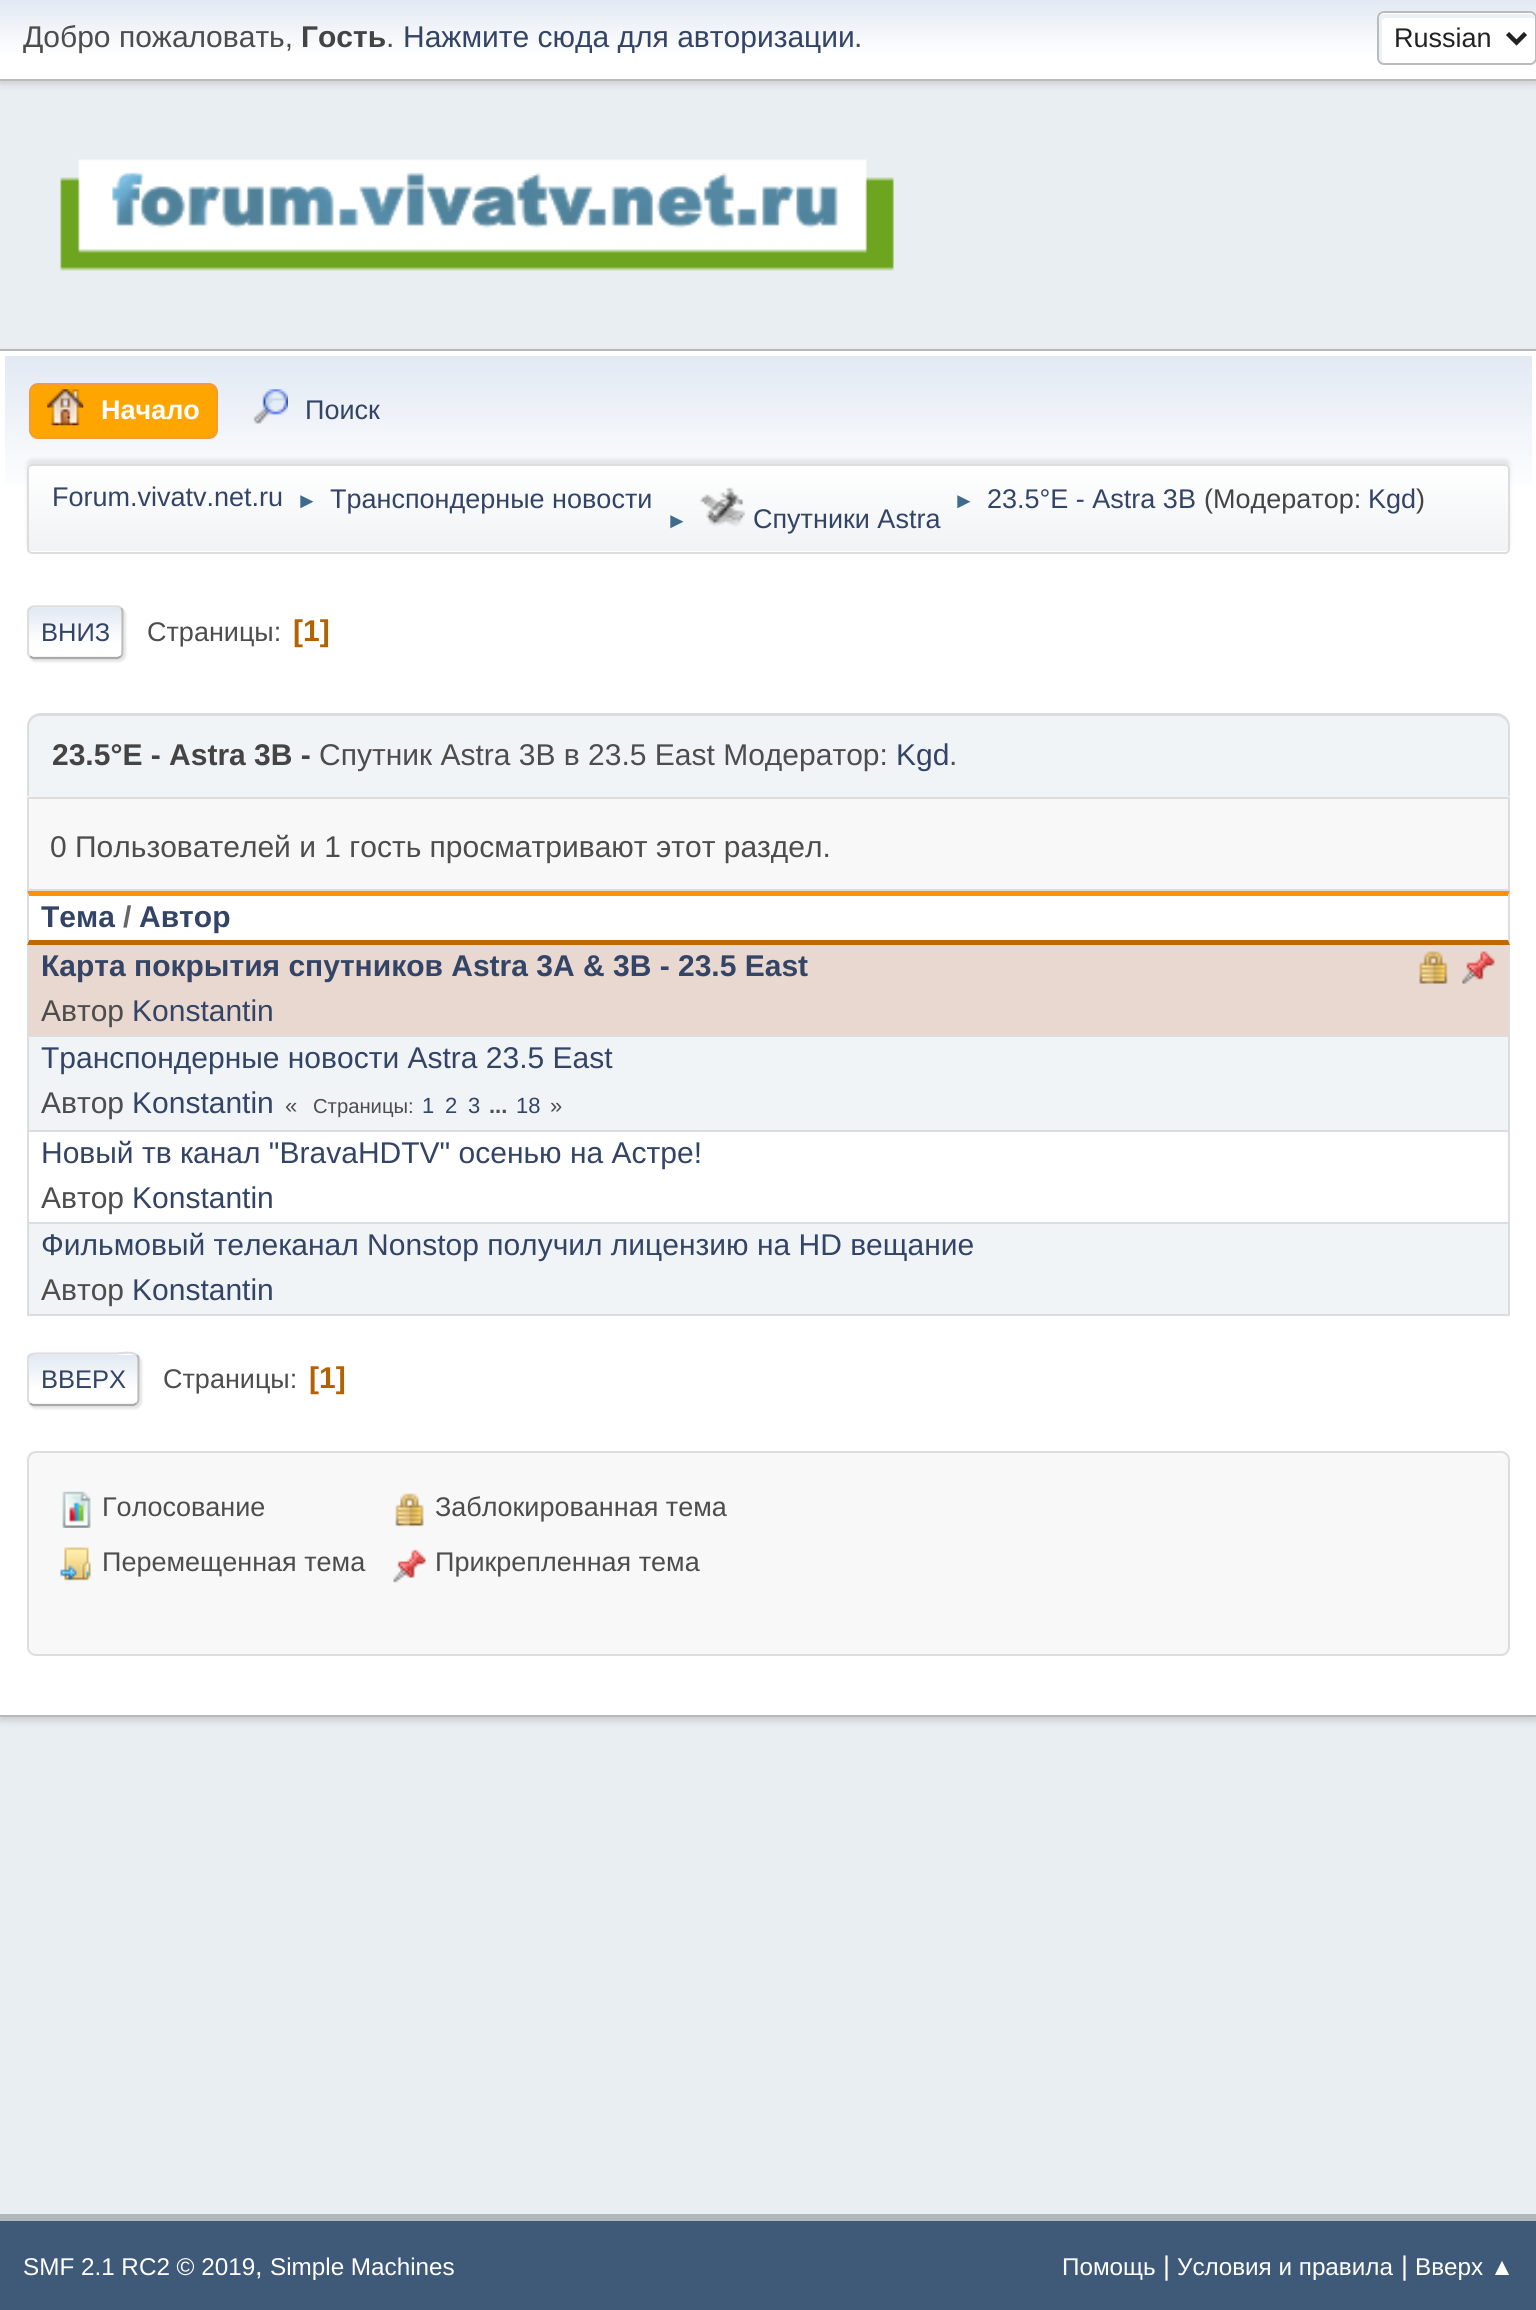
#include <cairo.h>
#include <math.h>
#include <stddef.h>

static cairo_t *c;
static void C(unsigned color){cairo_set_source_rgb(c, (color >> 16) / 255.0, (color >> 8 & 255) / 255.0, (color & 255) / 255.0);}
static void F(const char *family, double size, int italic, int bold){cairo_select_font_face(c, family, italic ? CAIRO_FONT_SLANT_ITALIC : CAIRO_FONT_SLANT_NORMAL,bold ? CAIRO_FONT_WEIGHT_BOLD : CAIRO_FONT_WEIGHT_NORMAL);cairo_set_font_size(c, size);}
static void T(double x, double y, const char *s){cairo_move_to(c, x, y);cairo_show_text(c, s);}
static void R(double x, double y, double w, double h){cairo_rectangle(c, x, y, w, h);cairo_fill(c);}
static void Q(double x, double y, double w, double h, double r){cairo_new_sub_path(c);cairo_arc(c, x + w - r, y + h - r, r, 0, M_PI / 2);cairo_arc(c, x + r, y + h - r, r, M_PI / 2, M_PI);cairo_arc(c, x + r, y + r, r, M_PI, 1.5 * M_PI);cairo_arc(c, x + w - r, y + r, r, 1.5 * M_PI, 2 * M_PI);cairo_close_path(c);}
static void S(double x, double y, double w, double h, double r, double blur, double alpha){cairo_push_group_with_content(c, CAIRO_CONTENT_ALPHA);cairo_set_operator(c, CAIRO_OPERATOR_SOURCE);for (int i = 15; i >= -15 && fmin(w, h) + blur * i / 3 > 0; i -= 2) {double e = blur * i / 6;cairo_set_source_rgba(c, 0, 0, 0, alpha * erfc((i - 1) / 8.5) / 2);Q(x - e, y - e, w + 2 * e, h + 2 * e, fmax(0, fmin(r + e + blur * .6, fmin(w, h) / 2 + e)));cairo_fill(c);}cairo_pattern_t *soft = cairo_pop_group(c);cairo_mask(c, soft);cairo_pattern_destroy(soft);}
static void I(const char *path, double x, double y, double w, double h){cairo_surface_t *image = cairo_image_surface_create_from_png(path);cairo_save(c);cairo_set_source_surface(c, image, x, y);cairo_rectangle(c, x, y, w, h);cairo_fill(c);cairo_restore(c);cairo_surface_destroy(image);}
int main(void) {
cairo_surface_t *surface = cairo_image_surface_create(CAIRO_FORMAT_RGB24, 1536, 2310);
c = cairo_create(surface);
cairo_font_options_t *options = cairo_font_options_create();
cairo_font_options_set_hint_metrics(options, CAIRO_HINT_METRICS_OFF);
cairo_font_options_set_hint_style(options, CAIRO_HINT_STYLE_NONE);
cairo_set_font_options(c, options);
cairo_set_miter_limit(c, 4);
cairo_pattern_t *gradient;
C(0xe9eef2);
cairo_paint(c);
C(0x000000);
S(0,2,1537,81,0,4.5,.16);
gradient = cairo_pattern_create_linear(768,0,768,79);
cairo_pattern_add_color_stop_rgba(gradient,0,0.886,0.914,0.953,1);
cairo_pattern_add_color_stop_rgba(gradient,.7,1,1,1,1);
cairo_set_source(c,gradient);
cairo_pattern_destroy(gradient);
R(0,0,1536,79);
C(0xbbbbbb);
R(0,79,1536,2);
F("Liberation Sans",30,0,0);
C(0x4d4d4d);
T(23,47,"Добро пожаловать,");
F("Liberation Sans",30,0,1);
C(0x444444);
T(301,47,"Гость");
F("Liberation Sans",30,0,0);
C(0x4d4d4d);
T(386,47,".");
C(0x334466);
T(403,47,"Нажмите сюда для авторизации");
C(0x4d4d4d);
T(854,47,".");
C(0xffffff);
Q(1377,11,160,54,7);
cairo_fill(c);
C(0xecf1f8);
cairo_new_path(c);
cairo_move_to(c,1386,18);
cairo_line_to(c,1532,18);
cairo_line_to(c,1535,19);
cairo_curve_to(c,1535,16,1533,14,1530,14);
cairo_line_to(c,1384,14);
cairo_curve_to(c,1381,14,1379,16,1379,19);
cairo_line_to(c,1379,58);
cairo_curve_to(c,1379,60,1380,62,1382,63);
cairo_line_to(c,1382,22);
cairo_curve_to(c,1382,20,1384,18,1386,18);
cairo_close_path(c);
cairo_fill(c);
Q(1378,12,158,52,6);
C(0xbbbbbb);
cairo_stroke(c);
cairo_new_path(c);
cairo_move_to(c,1507.5,33.5);
cairo_line_to(c,1516.5,42.5);
cairo_line_to(c,1525.5,33.5);
C(0x222222);
cairo_set_line_width(c,4.5);
cairo_stroke(c);
F("Liberation Sans",27,0,0);
T(1394,47,"Russian");
I("1.png",60,159,834,112);
C(0x000000);
S(0,353,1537,1368,0,3.5,.14);
C(0xffffff);
R(0,351,1536,1364);
C(0xb8b8b8);
R(0,349,1536,2);
R(0,1715,1536,2);
gradient = cairo_pattern_create_linear(768,355,768,558);
cairo_pattern_add_color_stop_rgba(gradient,0,0.886,0.914,0.953,1);
cairo_pattern_add_color_stop_rgba(gradient,.7,1,1,1,1);
cairo_set_source(c,gradient);
cairo_pattern_destroy(gradient);
R(5,356,1527,129);
C(0xffa500);
Q(30,384,187,54,8);
cairo_fill_preserve(c);
C(0xf49a3a);
cairo_set_line_width(c,2);
cairo_stroke(c);
I("2.png",47,389,37,37);
F("Liberation Sans",27,0,1);
C(0xffffff);
T(101,419,"Начало");
I("3.png",253,389,35,35);
F("Liberation Sans",27,0,0);
C(0x334466);
T(305,419,"Поиск");
C(0x000000);
S(27,459,1483,90,5,2,.08);
C(0xffffff);
Q(27,464,1483,90,5);
cairo_fill(c);
cairo_save(c);
Q(27,464,1483,90,5);
cairo_clip(c);
gradient = cairo_pattern_create_linear(768,466,768,551);
cairo_pattern_add_color_stop_rgba(gradient,0,1,1,1,1);
cairo_pattern_add_color_stop_rgba(gradient,.95,0.945,0.953,0.961,1);
cairo_set_source(c,gradient);
cairo_pattern_destroy(gradient);
R(27,466,1483,85);
cairo_restore(c);
Q(28,465,1481,88,4);
C(0xdddddd);
cairo_stroke(c);
C(0x334466);
T(52,506,"Forum.vivatv.net.ru");
F("Liberation Sans",22,0,0);
C(0x3f6b8c);
T(296,508,"►");
F("Liberation Sans",27,0,0);
C(0x334466);
T(330,508,"Транспондерные новости");
F("Liberation Sans",22,0,0);
C(0x3f6b8c);
T(953,508,"►");
F("Liberation Sans",27,0,0);
C(0x334466);
T(987,508,"23.5°E - Astra 3B");
C(0x444444);
T(1204,508,"(Модератор:");
C(0x334466);
T(1368,508,"Kgd");
C(0x444444);
T(1416,508,")");
F("Liberation Sans",22,0,0);
C(0x3f6b8c);
T(666,528,"►");
I("4.png",699,487,46,40);
F("Liberation Sans",27,0,0);
C(0x334466);
T(753,528,"Спутники Astra");
C(0x000000);
S(29,608,97,54,7,1,.1);
C(0xffffff);
Q(27,605,97,54,7);
cairo_fill(c);
cairo_save(c);
Q(27,605,97,54,7);
cairo_clip(c);
gradient = cairo_pattern_create_linear(75,608,75,657);
cairo_pattern_add_color_stop_rgba(gradient,0,0.886,0.914,0.953,1);
cairo_pattern_add_color_stop_rgba(gradient,.7,1,1,1,1);
cairo_set_source(c,gradient);
cairo_pattern_destroy(gradient);
R(27,608,97,49);
gradient = cairo_pattern_create_linear(75,657,75,707);
cairo_pattern_add_color_stop_rgba(gradient,0,0.886,0.914,0.953,1);
cairo_pattern_add_color_stop_rgba(gradient,.7,1,1,1,1);
cairo_set_source(c,gradient);
cairo_pattern_destroy(gradient);
R(27,657,97,2);
cairo_restore(c);
cairo_new_path(c);
cairo_move_to(c,121,608);
cairo_curve_to(c,122,609,122.5,610.5,122.5,612);
cairo_line_to(c,122.5,652.5);
cairo_curve_to(c,122.5,654,122,655.5,121,656.5);
C(0xbbbbbb);
cairo_set_line_width(c,2.2);
cairo_stroke(c);
cairo_new_path(c);
cairo_move_to(c,121,656.5);
cairo_line_to(c,117.5,658);
cairo_line_to(c,33,658);
cairo_line_to(c,30,656.5);
C(0xaaaaaa);
cairo_stroke(c);
cairo_save(c);
cairo_rectangle(c,27,578,1483,108);
cairo_clip(c);
cairo_new_path(c);
cairo_move_to(c,30,656.5);
cairo_curve_to(c,28.5,655.5,28,654,28,652.5);
cairo_line_to(c,28,612);
cairo_curve_to(c,28,610.5,28.5,609,30,608);
cairo_curve_to(c,31,607,32.5,606.5,34,606.5);
cairo_line_to(c,117,606.5);
cairo_curve_to(c,118.5,606.5,120,607,121,608);
C(0xdddddd);
cairo_stroke(c);
cairo_restore(c);
F("Liberation Sans",25.5,0,0);
C(0x334466);
T(41,641,"ВНИЗ");
F("Liberation Sans",27,0,0);
C(0x4d4d4d);
T(147,641,"Страницы:");
F("Liberation Sans",30,0,1);
C(0xb46100);
T(293,641,"[1]");
C(0xf0f4f7);
cairo_new_path(c);
cairo_move_to(c,41,713);
cairo_line_to(c,1496,713);
cairo_curve_to(c,1503.5,713,1510,719.5,1510,727);
cairo_line_to(c,1510,797);
cairo_line_to(c,27,797);
cairo_line_to(c,27,727);
cairo_curve_to(c,27,719.5,33.5,713,41,713);
cairo_close_path(c);
cairo_fill(c);
C(0xdddddd);
cairo_set_fill_rule(c,CAIRO_FILL_RULE_EVEN_ODD);
cairo_new_path(c);
cairo_move_to(c,40,713);
cairo_line_to(c,1496,713);
cairo_curve_to(c,1504,713,1510,719,1510,727);
cairo_line_to(c,1510,796);
cairo_line_to(c,27,796);
cairo_line_to(c,27,727);
cairo_curve_to(c,27,719,33,713,40,713);
cairo_close_path(c);
cairo_move_to(c,40,716);
cairo_line_to(c,1496,716);
cairo_curve_to(c,1502,716,1508,721,1508,727);
cairo_line_to(c,1508,796);
cairo_line_to(c,29,796);
cairo_line_to(c,29,727);
cairo_curve_to(c,29,721,34,716,40,716);
cairo_close_path(c);
cairo_fill(c);
C(0x444444);
T(52,765,"23.5°E - Astra 3B -");
F("Liberation Sans",30,0,0);
C(0x4d4d4d);
T(319,765,"Спутник Astra 3B в 23.5 East Модератор:");
C(0x334466);
T(896,765,"Kgd");
C(0x4d4d4d);
T(949,765,".");
C(0xf8f8f8);
cairo_rectangle(c,28,798,1481,92);
cairo_fill_preserve(c);
C(0xdddddd);
cairo_set_line_width(c,2);
cairo_stroke(c);
C(0x4d4d4d);
T(50,857,"0 Пользователей и 1 гость просматривают этот раздел.");
C(0xff9400);
cairo_set_fill_rule(c,CAIRO_FILL_RULE_WINDING);
cairo_new_path(c);
cairo_move_to(c,27,891);
cairo_line_to(c,1510,891);
cairo_line_to(c,1508,896);
cairo_line_to(c,29,896);
cairo_close_path(c);
cairo_fill(c);
C(0xdddddd);
cairo_new_path(c);
cairo_move_to(c,1510,891);
cairo_line_to(c,1510,945);
cairo_line_to(c,1508,940);
cairo_line_to(c,1508,896);
cairo_close_path(c);
cairo_fill(c);
C(0xbf6900);
cairo_new_path(c);
cairo_move_to(c,1510,945);
cairo_line_to(c,27,945);
cairo_line_to(c,29,940);
cairo_line_to(c,1508,940);
cairo_close_path(c);
cairo_fill(c);
C(0xdddddd);
cairo_new_path(c);
cairo_move_to(c,27,945);
cairo_line_to(c,27,891);
cairo_line_to(c,29,896);
cairo_line_to(c,29,940);
cairo_close_path(c);
cairo_fill(c);
F("Liberation Sans",30,0,1);
C(0x334466);
T(41,927,"Тема");
C(0x666666);
T(123,927,"/");
C(0x334466);
T(139,927,"Автор");
C(0xe8d8cf);
R(29,945,1479,90);
C(0xdddddd);
R(1508,945,2,371);
R(27,1035,1483,2);
R(27,945,2,92);
C(0x334466);
T(41,976,"Карта покрытия спутников Astra 3A & 3B - 23.5 East");
I("5.png",1419,951,29,33);
I("6.png",1462,951,33,33);
F("Liberation Sans",30,0,0);
C(0x4d4d4d);
T(41,1021,"Автор");
C(0x334466);
T(132,1021,"Konstantin");
C(0xf0f4f7);
R(29,1037,1479,93);
C(0xdddddd);
R(27,1130,1483,2);
R(27,1037,2,95);
C(0x334466);
T(41,1068,"Транспондерные новости Astra 23.5 East");
C(0x4d4d4d);
T(41,1113,"Автор");
C(0x334466);
T(132,1113,"Konstantin");
F("Liberation Sans",22,0,0);
C(0x4d4d4d);
T(285,1113,"«");
F("Liberation Sans",20.25,0,0);
T(313,1113,"Страницы:");
F("Liberation Sans",22,0,0);
C(0x334466);
T(422,1113,"1");
T(445,1113,"2");
T(468,1113,"3");
F("Liberation Sans",22,0,1);
C(0x4d4d4d);
T(489,1113,"...");
F("Liberation Sans",22,0,0);
C(0x334466);
T(516,1113,"18");
C(0x4d4d4d);
T(550,1113,"»");
C(0xdddddd);
R(27,1222,1483,2);
R(27,1132,2,92);
F("Liberation Sans",30,0,0);
C(0x334466);
T(41,1163,"Новый тв канал \"BravaHDTV\" осенью на Астре!");
C(0x4d4d4d);
T(41,1208,"Автор");
C(0x334466);
T(132,1208,"Konstantin");
C(0xf0f4f7);
R(29,1224,1479,90);
C(0xdddddd);
R(27,1314,1483,2);
R(27,1224,2,92);
C(0x334466);
T(41,1255,"Фильмовый телеканал Nonstop получил лицензию на HD вещание");
C(0x4d4d4d);
T(41,1300,"Автор");
C(0x334466);
T(132,1300,"Konstantin");
C(0x000000);
S(29,1355,113,54,7,1,.1);
C(0xffffff);
Q(27,1352,113,54,7);
cairo_fill(c);
cairo_save(c);
Q(27,1352,113,54,7);
cairo_clip(c);
gradient = cairo_pattern_create_linear(83,1355,83,1404);
cairo_pattern_add_color_stop_rgba(gradient,0,0.886,0.914,0.953,1);
cairo_pattern_add_color_stop_rgba(gradient,.7,1,1,1,1);
cairo_set_source(c,gradient);
cairo_pattern_destroy(gradient);
R(27,1355,113,49);
gradient = cairo_pattern_create_linear(83,1404,83,1454);
cairo_pattern_add_color_stop_rgba(gradient,0,0.886,0.914,0.953,1);
cairo_pattern_add_color_stop_rgba(gradient,.7,1,1,1,1);
cairo_set_source(c,gradient);
cairo_pattern_destroy(gradient);
R(27,1404,113,2);
cairo_restore(c);
cairo_new_path(c);
cairo_move_to(c,136.5,1355);
cairo_curve_to(c,138,1356,138.5,1357.5,138.5,1359);
cairo_line_to(c,138.5,1399.5);
cairo_curve_to(c,138.5,1401,138,1402.5,136.5,1403.5);
C(0xbbbbbb);
cairo_set_line_width(c,2.2);
cairo_stroke(c);
cairo_new_path(c);
cairo_move_to(c,136.5,1403.5);
cairo_line_to(c,133.5,1405);
cairo_line_to(c,33,1405);
cairo_line_to(c,30,1403.5);
C(0xaaaaaa);
cairo_stroke(c);
cairo_save(c);
cairo_rectangle(c,27,1325,1483,108);
cairo_clip(c);
cairo_new_path(c);
cairo_move_to(c,30,1403.5);
cairo_curve_to(c,27,1401,28,1396,28,1393);
cairo_line_to(c,28,1379);
cairo_curve_to(c,28,1351.5,23,1353.5,50,1353.5);
cairo_line_to(c,116,1353.5);
cairo_curve_to(c,118,1353.5,132.5,1351,136.5,1355);
C(0xdddddd);
cairo_stroke(c);
cairo_restore(c);
F("Liberation Sans",25.5,0,0);
C(0x334466);
T(41,1388,"ВВЕРХ");
F("Liberation Sans",27,0,0);
C(0x4d4d4d);
T(163,1388,"Страницы:");
F("Liberation Sans",30,0,1);
C(0xb46100);
T(309,1388,"[1]");
C(0xf8f8f8);
Q(28,1452,1481,203,8);
cairo_fill_preserve(c);
C(0xdddddd);
cairo_set_line_width(c,2);
cairo_stroke(c);
I("7.png",62,1491,29,37);
F("Liberation Sans",27,0,0);
C(0x4d4d4d);
T(102,1516,"Голосование");
I("8.png",60,1547,31,34);
T(102,1571,"Перемещенная тема");
I("9.png",395,1493,29,34);
T(435,1516,"Заблокированная тема");
I("10.png",393,1549,33,34);
T(435,1571,"Прикрепленная тема");
C(0x3e5a78);
R(0,2221,1536,89);
C(0xb2b6bd);
R(0,2214,1536,7);
F("Liberation Sans",24.25,0,0);
C(0xffffff);
T(23,2275,"SMF 2.1 RC2 © 2019");
F("Liberation Sans",27,0,0);
T(255,2275,",");
F("Liberation Sans",24.25,0,0);
T(270,2275,"Simple Machines");
T(1062,2275,"Помощь");
F("Liberation Sans",27,0,0);
T(1163,2275,"|");
F("Liberation Sans",24.25,0,0);
T(1177,2275,"Условия и правила");
F("Liberation Sans",27,0,0);
T(1401,2275,"|");
F("Liberation Sans",24.25,0,0);
T(1415,2275,"Вверх ▲");
cairo_surface_write_to_png(surface, "o.png");
cairo_font_options_destroy(options);
cairo_destroy(c);
cairo_surface_destroy(surface);
return 0;
}
